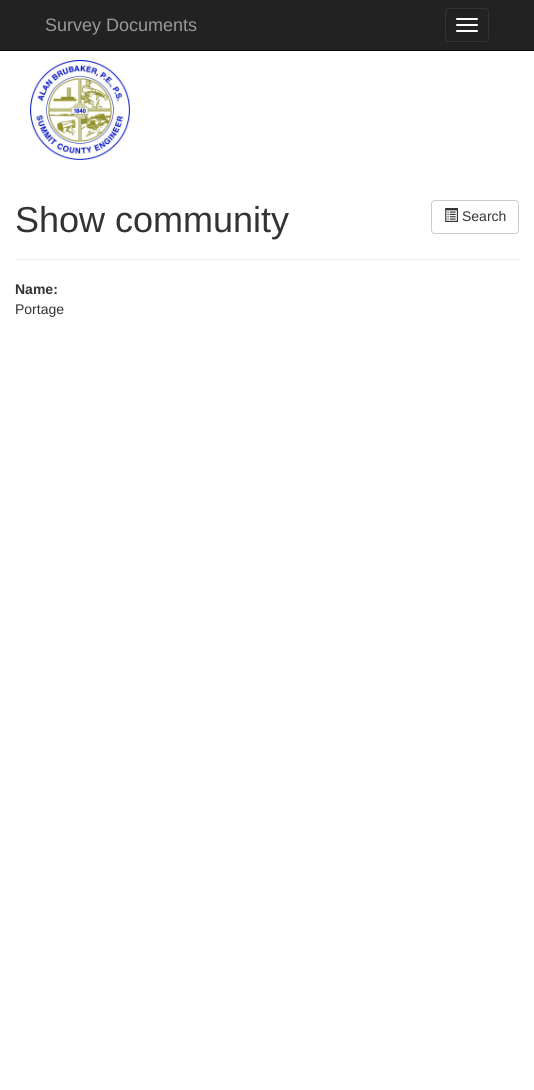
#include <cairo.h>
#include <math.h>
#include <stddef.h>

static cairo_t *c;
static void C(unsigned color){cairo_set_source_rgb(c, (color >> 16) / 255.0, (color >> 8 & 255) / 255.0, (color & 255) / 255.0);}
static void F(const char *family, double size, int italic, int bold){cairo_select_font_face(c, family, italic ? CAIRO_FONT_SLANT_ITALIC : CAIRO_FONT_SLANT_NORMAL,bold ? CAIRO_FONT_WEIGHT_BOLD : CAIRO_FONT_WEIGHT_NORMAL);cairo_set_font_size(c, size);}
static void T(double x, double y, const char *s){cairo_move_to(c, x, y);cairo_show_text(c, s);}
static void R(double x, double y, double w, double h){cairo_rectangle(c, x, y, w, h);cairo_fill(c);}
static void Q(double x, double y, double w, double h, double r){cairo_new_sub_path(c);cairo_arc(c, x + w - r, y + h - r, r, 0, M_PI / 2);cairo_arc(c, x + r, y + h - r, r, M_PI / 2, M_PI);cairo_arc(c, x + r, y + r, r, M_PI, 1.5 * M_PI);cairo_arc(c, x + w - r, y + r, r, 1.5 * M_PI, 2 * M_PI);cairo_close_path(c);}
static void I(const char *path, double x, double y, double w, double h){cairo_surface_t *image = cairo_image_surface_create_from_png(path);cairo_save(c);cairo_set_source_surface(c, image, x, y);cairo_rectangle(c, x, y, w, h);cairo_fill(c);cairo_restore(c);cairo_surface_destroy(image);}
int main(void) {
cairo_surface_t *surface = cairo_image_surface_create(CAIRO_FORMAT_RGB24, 534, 1090);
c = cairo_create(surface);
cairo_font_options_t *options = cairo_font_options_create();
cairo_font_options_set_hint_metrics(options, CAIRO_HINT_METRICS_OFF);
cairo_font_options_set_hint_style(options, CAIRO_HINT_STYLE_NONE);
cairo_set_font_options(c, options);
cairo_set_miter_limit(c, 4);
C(0xffffff);
cairo_paint(c);
C(0x222222);
R(0,0,534,50);
C(0x090909);
R(0,50,534,1);
F("Liberation Sans",18,0,0);
C(0x999999);
T(45,31,"Survey Documents");
Q(445.5,8.5,43,33,3.5);
C(0x333333);
cairo_set_line_width(c,1);
cairo_stroke(c);
C(0xffffff);
Q(456,18,22,2,1);
cairo_fill(c);
Q(456,24,22,2,1);
cairo_fill(c);
Q(456,30,22,2,1);
cairo_fill(c);
I("1.png",30,60,100,100);
C(0xeeeeee);
R(15,259,504,1);
F("Liberation Sans",36,0,0);
C(0x333333);
T(15,232,"Show community");
Q(431.5,200.5,87,33,3.5);
C(0xcccccc);
cairo_stroke(c);
I("2.png",445,208,13,14);
F("Liberation Sans",14,0,0);
C(0x333333);
T(462,221,"Search");
F("Liberation Sans",14,0,1);
T(15,294,"Name:");
F("Liberation Sans",14,0,0);
T(15,314,"Portage");
cairo_surface_write_to_png(surface, "o.png");
cairo_font_options_destroy(options);
cairo_destroy(c);
cairo_surface_destroy(surface);
return 0;
}
